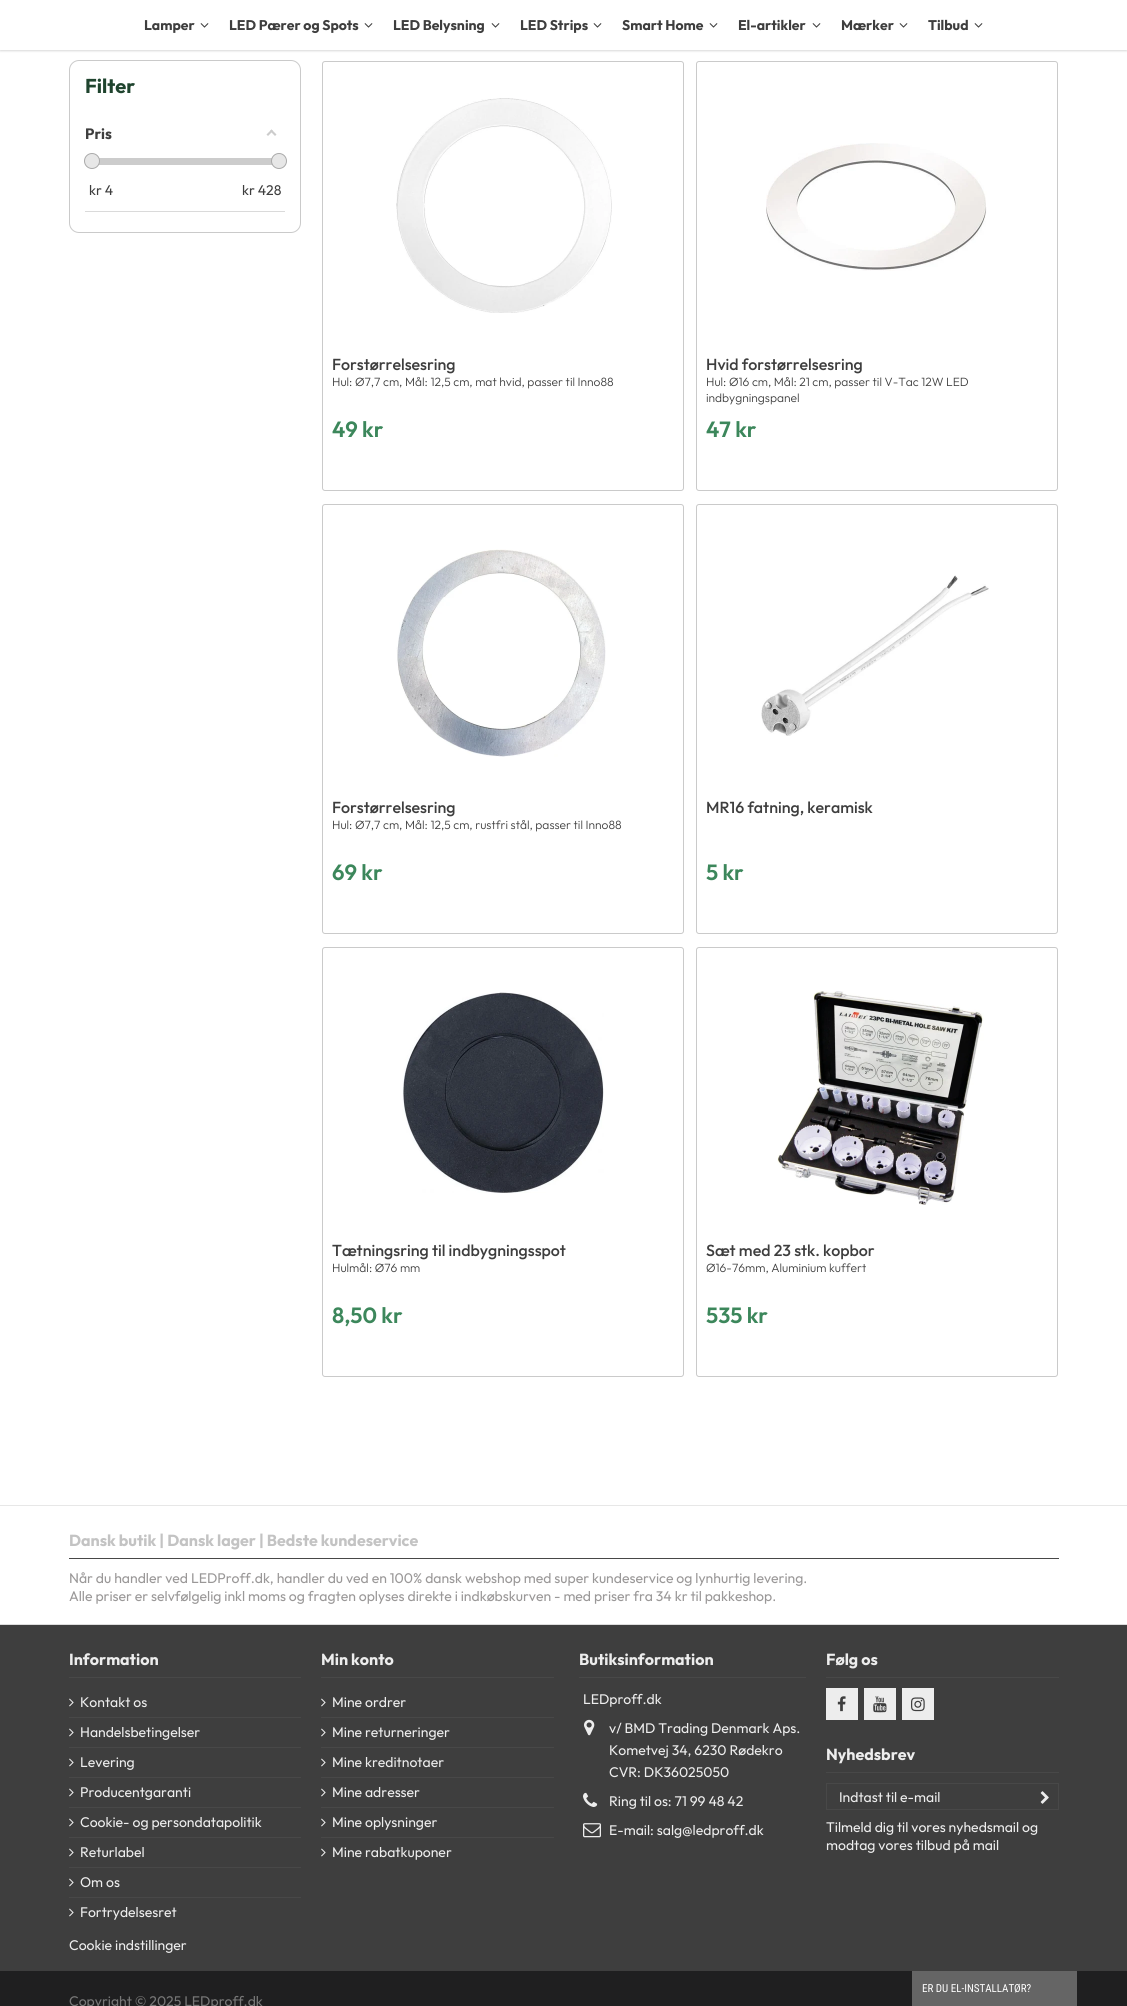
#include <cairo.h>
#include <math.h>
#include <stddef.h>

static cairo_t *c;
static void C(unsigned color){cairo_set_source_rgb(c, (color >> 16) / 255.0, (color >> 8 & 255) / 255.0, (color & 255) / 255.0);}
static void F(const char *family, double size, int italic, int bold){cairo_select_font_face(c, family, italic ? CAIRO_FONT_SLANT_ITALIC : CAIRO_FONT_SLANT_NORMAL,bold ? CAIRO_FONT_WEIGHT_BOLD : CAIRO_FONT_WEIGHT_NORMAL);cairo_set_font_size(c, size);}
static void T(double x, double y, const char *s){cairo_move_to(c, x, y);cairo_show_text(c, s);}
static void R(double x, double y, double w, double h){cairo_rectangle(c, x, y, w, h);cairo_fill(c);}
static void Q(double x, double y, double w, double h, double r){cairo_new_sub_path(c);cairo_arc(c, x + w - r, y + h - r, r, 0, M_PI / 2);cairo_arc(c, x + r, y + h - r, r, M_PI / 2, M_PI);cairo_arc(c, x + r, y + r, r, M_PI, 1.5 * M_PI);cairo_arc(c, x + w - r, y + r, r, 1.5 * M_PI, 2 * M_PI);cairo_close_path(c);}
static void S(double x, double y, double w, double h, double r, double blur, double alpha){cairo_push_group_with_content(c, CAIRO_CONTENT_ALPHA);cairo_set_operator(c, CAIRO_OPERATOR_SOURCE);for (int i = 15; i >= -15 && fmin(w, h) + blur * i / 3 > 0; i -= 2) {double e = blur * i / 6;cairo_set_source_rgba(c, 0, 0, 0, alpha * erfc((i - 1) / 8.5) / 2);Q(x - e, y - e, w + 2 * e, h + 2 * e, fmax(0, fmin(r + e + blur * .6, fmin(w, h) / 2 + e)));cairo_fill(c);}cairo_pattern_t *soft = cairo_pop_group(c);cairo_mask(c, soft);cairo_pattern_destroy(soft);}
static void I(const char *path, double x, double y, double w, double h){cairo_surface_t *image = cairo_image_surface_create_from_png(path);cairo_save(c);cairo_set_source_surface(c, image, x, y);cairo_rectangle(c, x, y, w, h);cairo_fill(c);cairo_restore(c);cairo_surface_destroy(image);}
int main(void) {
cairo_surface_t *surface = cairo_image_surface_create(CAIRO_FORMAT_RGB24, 1127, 2006);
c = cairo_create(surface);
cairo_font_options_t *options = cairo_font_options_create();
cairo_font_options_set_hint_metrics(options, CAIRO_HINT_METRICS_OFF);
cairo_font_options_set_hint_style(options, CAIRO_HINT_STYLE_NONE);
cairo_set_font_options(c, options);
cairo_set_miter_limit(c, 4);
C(0xffffff);
cairo_paint(c);
C(0x000000);
S(0,1,1127,50,0,1,.15);
C(0xffffff);
R(0,0,1127,50);
F("Outfit",14,0,1);
C(0x3e3e3e);
T(144,30,"Lamper");
I("1.png",200,23,9,5);
T(229,30,"LED Pærer og Spots");
I("1.png",364,23,9,5);
T(393,30,"LED Belysning");
I("1.png",491,23,9,5);
T(520,30,"LED Strips");
I("1.png",593,23,9,5);
T(622,30,"Smart Home");
I("1.png",709,23,9,5);
T(738,30,"El-artikler");
I("1.png",812,23,9,5);
T(841,30,"Mærker");
I("1.png",899,23,9,5);
T(928,30,"Tilbud");
I("1.png",974,23,9,5);
Q(69.5,60.5,231,172,9.5);
C(0xcacaca);
cairo_set_line_width(c,1);
cairo_stroke(c);
F("Outfit",20,0,1);
C(0x1f442e);
T(85,93,"Filter");
C(0xdadada);
R(85,211,200,1);
F("Outfit",15,0,1);
C(0x3e3e3e);
T(85,139,"Pris");
C(0xcccccc);
cairo_new_path(c);
cairo_move_to(c,271.5,129.5);
cairo_line_to(c,276.5,134.5);
cairo_line_to(c,275,136);
cairo_line_to(c,270,131);
cairo_close_path(c);
cairo_fill(c);
cairo_new_path(c);
cairo_move_to(c,271.5,129.5);
cairo_line_to(c,273,131);
cairo_line_to(c,268,136);
cairo_line_to(c,266.5,134.5);
cairo_close_path(c);
cairo_fill(c);
R(92,158,187,7);
C(0xe7e7e7);
cairo_arc(c,92,161,7.5,0,2 * M_PI);
cairo_fill_preserve(c);
C(0xaaaaaa);
cairo_stroke(c);
C(0xe7e7e7);
cairo_arc(c,279,161,7.5,0,2 * M_PI);
cairo_fill_preserve(c);
C(0xaaaaaa);
cairo_stroke(c);
F("Outfit",14,0,0);
C(0x3e3e3e);
T(89,195,"kr 4");
T(242,195,"kr 428");
Q(322.5,61.5,361,429,2.5);
C(0xcacaca);
cairo_stroke(c);
I("2.png",396,98,216,215);
F("Outfit Medium",16,0,0);
C(0x3e3e3e);
T(332,370,"Forstørrelsesring");
F("Outfit Light",12,0,0);
T(332,386,"Hul: Ø7,7 cm, Mål: 12,5 cm, mat hvid, passer til Inno88");
F("Outfit SemiBold",22,0,0);
C(0x3c875b);
T(332,437,"49 kr");
Q(696.5,61.5,361,429,2.5);
C(0xcacaca);
cairo_stroke(c);
I("3.png",766,143,221,128);
F("Outfit Medium",16,0,0);
C(0x3e3e3e);
T(706,370,"Hvid forstørrelsesring");
F("Outfit Light",12,0,0);
T(706,386,"Hul: Ø16 cm, Mål: 21 cm, passer til V-Tac 12W LED");
T(706,402,"indbygningspanel");
F("Outfit SemiBold",22,0,0);
C(0x3c875b);
T(706,437,"47 kr");
Q(322.5,504.5,361,429,2.5);
C(0xcacaca);
cairo_stroke(c);
I("4.png",396,549,210,208);
F("Outfit Medium",16,0,0);
C(0x3e3e3e);
T(332,813,"Forstørrelsesring");
F("Outfit Light",12,0,0);
T(332,829,"Hul: Ø7,7 cm, Mål: 12,5 cm, rustfri stål, passer til Inno88");
F("Outfit SemiBold",22,0,0);
C(0x3c875b);
T(332,880,"69 kr");
Q(696.5,504.5,361,429,2.5);
C(0xcacaca);
cairo_stroke(c);
I("5.png",761,575,228,161);
F("Outfit Medium",16,0,0);
C(0x3e3e3e);
T(706,813,"MR16 fatning, keramisk");
F("Outfit SemiBold",22,0,0);
C(0x3c875b);
T(706,880,"5 kr");
Q(322.5,947.5,361,429,2.5);
C(0xcacaca);
cairo_stroke(c);
I("6.png",402,992,202,201);
F("Outfit Medium",16,0,0);
C(0x3e3e3e);
T(332,1256,"Tætningsring til indbygningsspot");
F("Outfit Light",12,0,0);
T(332,1272,"Hulmål: Ø76 mm");
F("Outfit SemiBold",22,0,0);
C(0x3c875b);
T(332,1323,"8,50 kr");
Q(696.5,947.5,361,429,2.5);
C(0xcacaca);
cairo_stroke(c);
I("7.png",777,991,207,214);
F("Outfit Medium",16,0,0);
C(0x3e3e3e);
T(706,1256,"Sæt med 23 stk. kopbor");
F("Outfit Light",12,0,0);
T(706,1272,"Ø16-76mm, Aluminium kuffert");
F("Outfit SemiBold",22,0,0);
C(0x3c875b);
T(706,1323,"535 kr");
C(0x1f1f20);
R(0,1971,1127,35);
C(0xe7e7e7);
R(0,1505,1127,1);
C(0x484848);
R(69,1558,990,1);
F("Outfit",16,0,1);
C(0xc3c3c3);
T(69,1546,"Dansk butik | Dansk lager | Bedste kundeservice");
F("Outfit",14,0,0);
C(0x9a9898);
T(69,1583,"Når du handler ved LEDProff.dk, handler du ved en 100% dansk webshop med super kundeservice og lynhurtig levering.");
T(69,1601,"Alle priser er selvfølgelig inkl moms og fragten oplyses direkte i indkøbskurven - med priser fra 34 kr til pakkeshop.");
C(0x3e3e3e);
R(0,1625,1127,346);
C(0xdddddd);
R(0,1624,1127,1);
C(0x484848);
R(69,1677,232,1);
F("Outfit",16,0,1);
C(0xededed);
T(69,1665,"Information");
I("8.png",69,1698,5,9);
F("Outfit",14,0,0);
T(80,1707,"Kontakt os");
C(0x484848);
R(69,1717,232,1);
I("8.png",69,1728,5,9);
C(0xededed);
T(80,1737,"Handelsbetingelser");
C(0x484848);
R(69,1747,232,1);
I("8.png",69,1758,5,9);
C(0xededed);
T(80,1767,"Levering");
C(0x484848);
R(69,1777,232,1);
I("8.png",69,1788,5,9);
C(0xededed);
T(80,1797,"Producentgaranti");
C(0x484848);
R(69,1807,232,1);
I("8.png",69,1818,5,9);
C(0xededed);
T(80,1827,"Cookie- og persondatapolitik");
C(0x484848);
R(69,1837,232,1);
I("8.png",69,1848,5,9);
C(0xededed);
T(80,1857,"Returlabel");
C(0x484848);
R(69,1867,232,1);
I("8.png",69,1878,5,9);
C(0xededed);
T(80,1887,"Om os");
C(0x484848);
R(69,1897,232,1);
I("8.png",69,1908,5,9);
C(0xededed);
T(80,1917,"Fortrydelsesret");
T(69,1950,"Cookie indstillinger");
C(0x484848);
R(321,1677,233,1);
F("Outfit",16,0,1);
C(0xededed);
T(321,1665,"Min konto");
I("8.png",321,1698,5,9);
F("Outfit",14,0,0);
T(332,1707,"Mine ordrer");
C(0x484848);
R(321,1717,233,1);
I("8.png",321,1728,5,9);
C(0xededed);
T(332,1737,"Mine returneringer");
C(0x484848);
R(321,1747,233,1);
I("8.png",321,1758,5,9);
C(0xededed);
T(332,1767,"Mine kreditnotaer");
C(0x484848);
R(321,1777,233,1);
I("8.png",321,1788,5,9);
C(0xededed);
T(332,1797,"Mine adresser");
C(0x484848);
R(321,1807,233,1);
I("8.png",321,1818,5,9);
C(0xededed);
T(332,1827,"Mine oplysninger");
C(0x484848);
R(321,1837,233,1);
I("8.png",321,1848,5,9);
C(0xededed);
T(332,1857,"Mine rabatkuponer");
C(0x484848);
R(579,1677,227,1);
F("Outfit",16,0,1);
C(0xededed);
T(579,1665,"Butiksinformation");
F("Outfit",14,0,0);
T(583,1704,"LEDproff.dk");
I("9.png",584,1719,11,17);
T(609,1733,"v/ BMD Trading Denmark Aps.");
T(609,1755,"Kometvej 34, 6230 Rødekro");
T(609,1777,"CVR: DK36025050");
I("10.png",583,1792,15,15);
T(609,1806,"Ring til os: 71 99 48 42");
I("11.png",583,1823,18,15);
T(609,1835,"E-mail: salg@ledproff.dk");
C(0x484848);
R(826,1677,233,1);
F("Outfit",16,0,1);
C(0xededed);
T(826,1665,"Følg os");
R(826,1688,32,32);
I("12.png",837,1696,9,16);
R(864,1688,32,32);
I("13.png",873,1696,14,17);
R(902,1688,32,32);
I("14.png",911,1697,14,15);
C(0x484848);
R(826,1772,233,1);
C(0xededed);
T(826,1760,"Nyhedsbrev");
cairo_rectangle(c,826.5,1783.5,232,26);
C(0x484848);
cairo_stroke(c);
F("Outfit",14,0,0);
C(0xededed);
T(839,1802,"Indtast til e-mail");
I("15.png",1040,1791,9,13);
T(826,1832,"Tilmeld dig til vores nyhedsmail og");
T(826,1850,"modtag vores tilbud på mail");
C(0x777777);
T(69,2006,"Copyright © 2025 LEDproff.dk");
C(0x656565);
R(912,1971,165,35);
F("Roboto Condensed",11,0,0);
C(0xffffff);
T(922,1992,"ER DU EL-INSTALLATØR?");
cairo_surface_write_to_png(surface, "o.png");
cairo_font_options_destroy(options);
cairo_destroy(c);
cairo_surface_destroy(surface);
return 0;
}
